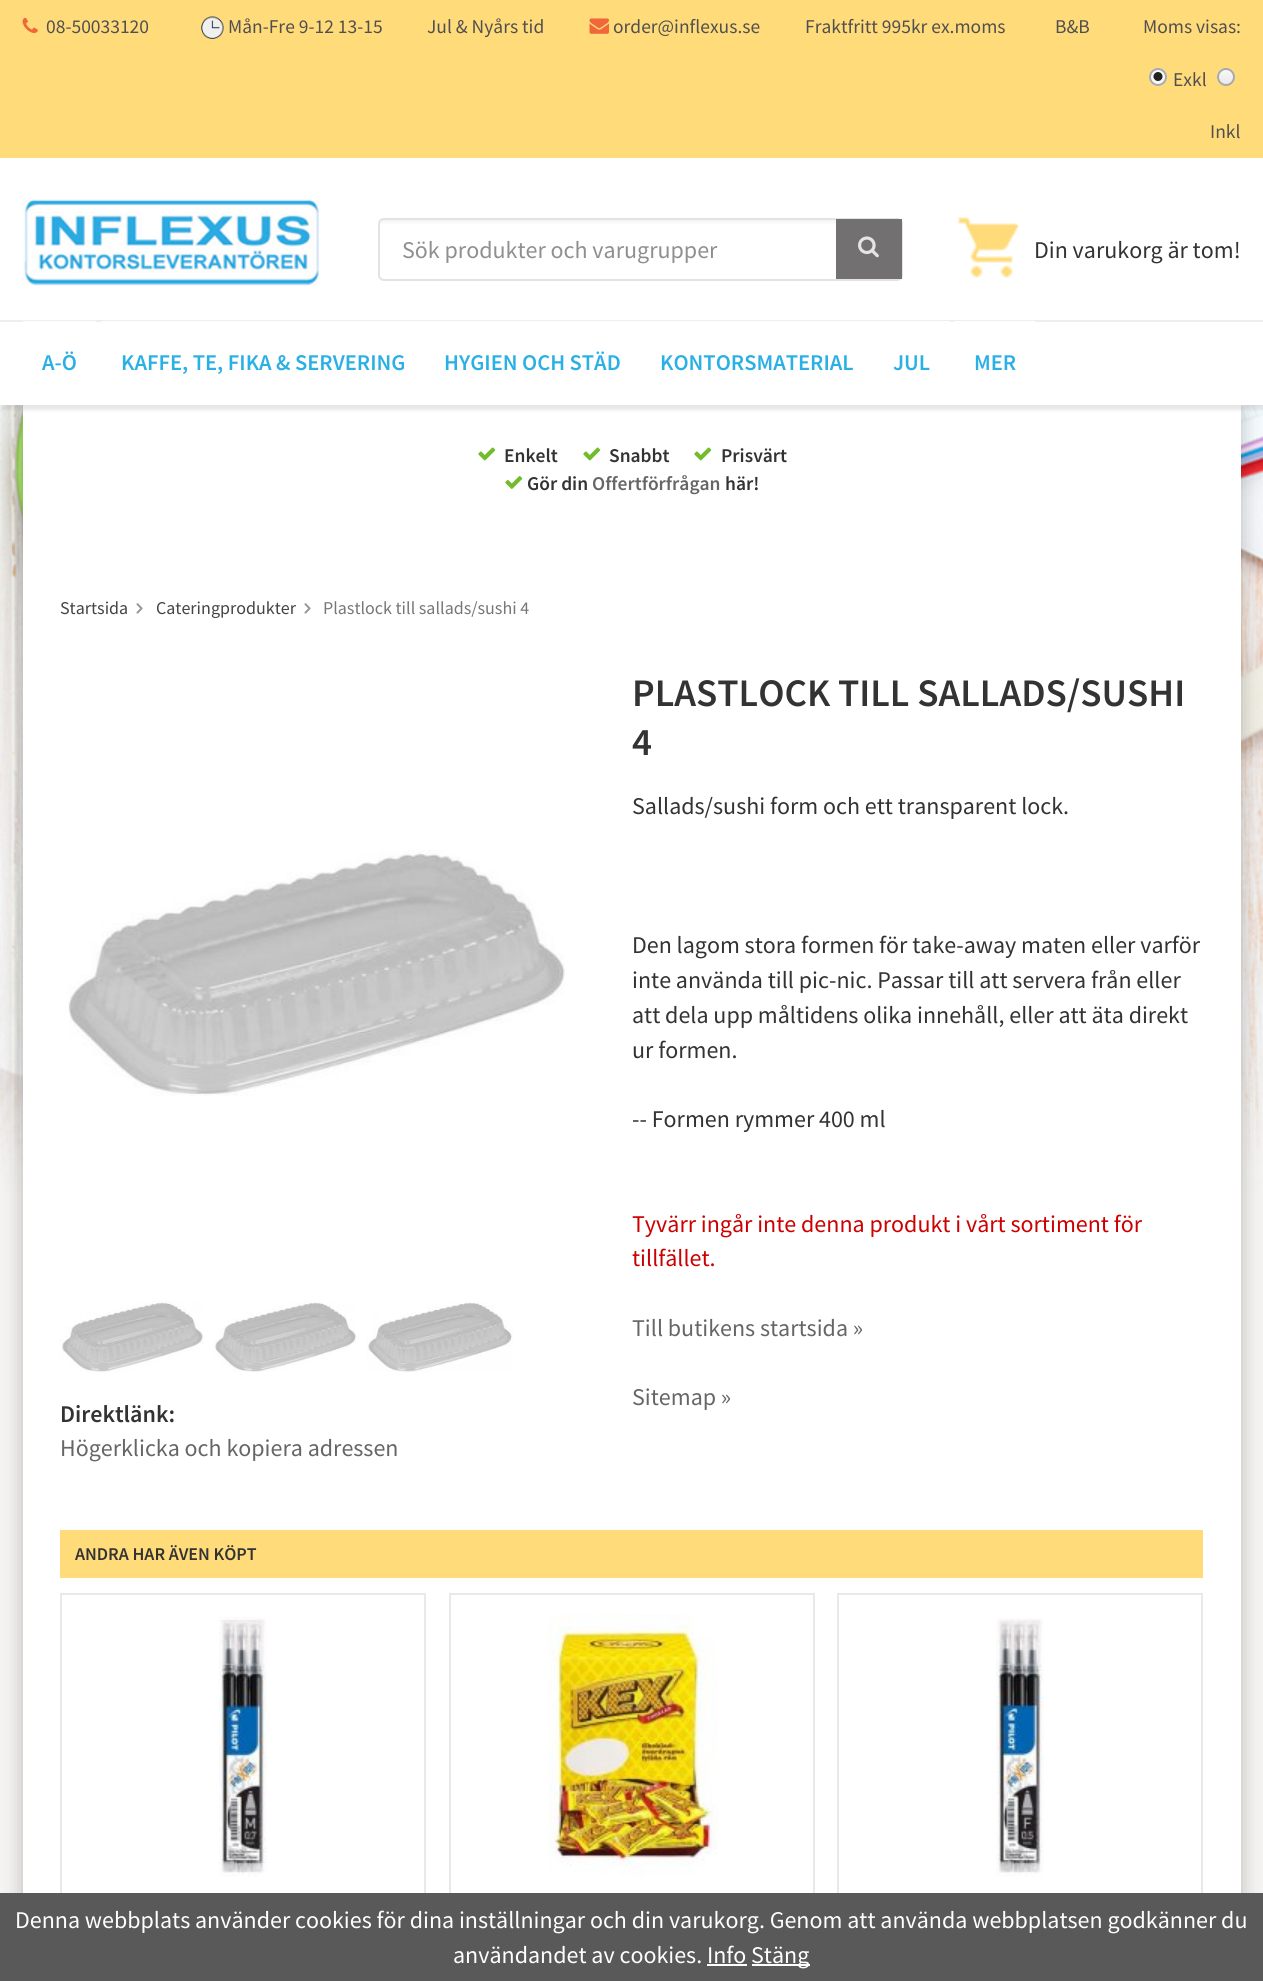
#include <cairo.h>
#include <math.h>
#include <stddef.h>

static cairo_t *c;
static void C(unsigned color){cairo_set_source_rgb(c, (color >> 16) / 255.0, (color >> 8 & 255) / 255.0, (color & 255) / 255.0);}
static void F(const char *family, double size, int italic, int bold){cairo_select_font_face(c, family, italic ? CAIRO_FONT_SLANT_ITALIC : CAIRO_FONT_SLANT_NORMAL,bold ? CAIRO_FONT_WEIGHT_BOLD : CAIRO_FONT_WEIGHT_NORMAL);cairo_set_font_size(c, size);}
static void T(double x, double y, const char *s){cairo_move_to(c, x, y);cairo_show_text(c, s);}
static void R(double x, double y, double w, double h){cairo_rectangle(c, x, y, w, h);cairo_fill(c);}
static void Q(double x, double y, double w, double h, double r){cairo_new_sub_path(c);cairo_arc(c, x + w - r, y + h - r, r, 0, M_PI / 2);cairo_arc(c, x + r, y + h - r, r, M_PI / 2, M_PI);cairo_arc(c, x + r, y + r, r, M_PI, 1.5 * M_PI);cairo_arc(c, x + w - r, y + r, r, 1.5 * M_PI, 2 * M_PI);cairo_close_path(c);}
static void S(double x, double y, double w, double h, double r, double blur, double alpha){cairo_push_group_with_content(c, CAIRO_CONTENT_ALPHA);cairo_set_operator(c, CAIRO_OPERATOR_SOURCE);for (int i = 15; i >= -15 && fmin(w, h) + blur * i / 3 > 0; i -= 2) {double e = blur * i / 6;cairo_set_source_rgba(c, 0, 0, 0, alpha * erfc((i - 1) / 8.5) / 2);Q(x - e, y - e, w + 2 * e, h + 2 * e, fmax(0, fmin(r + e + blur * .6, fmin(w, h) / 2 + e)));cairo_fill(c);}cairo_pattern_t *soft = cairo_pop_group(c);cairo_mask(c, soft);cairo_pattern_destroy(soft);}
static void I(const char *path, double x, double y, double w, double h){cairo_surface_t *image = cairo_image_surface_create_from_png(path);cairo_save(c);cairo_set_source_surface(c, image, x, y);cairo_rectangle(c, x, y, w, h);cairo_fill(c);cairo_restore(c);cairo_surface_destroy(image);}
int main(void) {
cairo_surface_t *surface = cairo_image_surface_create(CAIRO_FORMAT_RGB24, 1263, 1981);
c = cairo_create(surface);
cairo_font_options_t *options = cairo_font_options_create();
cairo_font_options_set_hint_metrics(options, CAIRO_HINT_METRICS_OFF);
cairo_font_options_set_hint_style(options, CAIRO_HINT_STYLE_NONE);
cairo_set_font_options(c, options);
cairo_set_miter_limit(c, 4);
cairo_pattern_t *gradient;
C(0xf6f5f3);
cairo_paint(c);
C(0xffdb7a);
R(0,0,1263,158);
I("1.png",22,17,16,17);
F("Source Sans Pro",19.5,0,0);
C(0x514f4f);
T(46,33,"08-50033120");
I("2.png",201,16,23,23);
T(228,33,"Mån-Fre 9-12 13-15");
T(427,33,"Jul & Nyårs tid");
I("3.png",589,18,20,16);
T(613,33,"order@inflexus.se");
T(805,33,"Fraktfritt 995kr ex.moms");
T(1055,33,"B&B");
T(1143,33,"Moms visas:");
C(0xf9f9f9);
cairo_new_path(c);
cairo_arc(c,1158,77,9,0,2 * M_PI);
cairo_fill(c);
I("4.png",1153,72,10,9);
cairo_arc(c,1158,77,8,0,2 * M_PI);
C(0xa9a9a9);
cairo_stroke(c);
C(0x514f4f);
T(1173,86,"Exkl");
cairo_save(c);
Q(1217,68,18,18,9);
cairo_clip(c);
gradient = cairo_pattern_create_linear(1226,69,1226,84);
cairo_pattern_add_color_stop_rgba(gradient,0,0.976,0.976,0.976,1);
cairo_pattern_add_color_stop_rgba(gradient,1,0.914,0.914,0.914,1);
cairo_set_source(c,gradient);
cairo_pattern_destroy(gradient);
R(1217,69,18,15);
cairo_restore(c);
cairo_arc(c,1226,77,8,0,2 * M_PI);
C(0xa9a9a9);
cairo_stroke(c);
C(0x514f4f);
T(1210,138,"Inkl");
C(0xffffff);
R(0,158,1263,162);
I("5.png",23,199,297,87);
cairo_save(c);
Q(378,218,525,63,6);
cairo_clip(c);
gradient = cairo_pattern_create_linear(641,279,641,219);
cairo_pattern_add_color_stop_rgba(gradient,.9,1,1,1,1);
cairo_pattern_add_color_stop_rgba(gradient,1,0.945,0.945,0.945,1);
cairo_set_source(c,gradient);
cairo_pattern_destroy(gradient);
R(378,219,525,60);
cairo_restore(c);
Q(379,219,523,61,5);
C(0xe3e3e3);
cairo_stroke(c);
F("Source Sans Pro",24,0,0);
C(0x8f8f8f);
T(402,258,"Sök produkter och varugrupper");
C(0x727071);
R(836,219,66,60);
I("6.png",858,236,21,22);
I("7.png",958,217,61,61);
C(0x333333);
T(1034,258,"Din varukorg är tom!");
I("8.png",0,405,1263,787);
C(0x000000);
S(23,413,1218,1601,0,11,.25);
C(0xffffff);
R(23,405,1218,1488);
C(0x000000);
S(2,324,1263,86,0,2,.1);
C(0xffffff);
R(0,322,1263,83);
C(0xeeeeee);
R(0,320,1263,2);
C(0xffffff);
R(23,321,73,1);
F("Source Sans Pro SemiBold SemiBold",22.5,0,0);
C(0x2bb0e5);
T(42,370,"A-Ö");
C(0xffffff);
R(102,321,848,1);
C(0x2bb0e5);
T(121,370,"KAFFE, TE, FIKA & SERVERING");
T(444,370,"HYGIEN OCH STÄD");
T(660,370,"KONTORSMATERIAL");
T(893,370,"JUL");
C(0xffffff);
R(954,321,81,1);
C(0x2bb0e5);
T(974,370,"MER");
I("9.png",478,447,18,14);
F("Source Sans Pro SemiBold SemiBold",19.5,0,0);
C(0x333333);
T(504,462,"Enkelt");
I("9.png",583,447,18,14);
T(609,462,"Snabbt");
I("9.png",694,447,18,14);
T(721,462,"Prisvärt");
I("10.png",505,476,18,13);
T(527,490,"Gör din");
C(0x666666);
T(592,490,"Offertförfrågan");
C(0x333333);
T(725,490,"här!");
F("Source Sans Pro",18,0,0);
C(0x444444);
T(60,614,"Startsida");
I("11.png",136,603,7,11);
T(156,614,"Cateringprodukter");
I("11.png",304,603,7,11);
C(0x777777);
T(323,614,"Plastlock till sallads/sushi 4");
I("12.png",68,850,497,246);
I("13.png",60,1301,144,71);
I("14.png",213,1302,144,70);
I("15.png",367,1302,146,70);
F("Source Sans Pro SemiBold SemiBold",39,0,0);
C(0x333333);
T(632,706,"PLASTLOCK TILL SALLADS/SUSHI");
T(632,755,"4");
F("Source Sans Pro",24,0,0);
T(632,814,"Sallads/sushi form och ett transparent lock.");
T(632,953,"Den lagom stora formen för take-away maten eller varför");
T(632,988,"inte använda till pic-nic. Passar till att servera från eller");
T(632,1023,"att dela upp måltidens olika innehåll, eller att äta direkt");
T(632,1058,"ur formen.");
T(632,1127,"-- Formen rymmer 400 ml");
C(0xcc0000);
T(632,1232,"Tyvärr ingår inte denna produkt i vårt sortiment för");
T(632,1266,"tillfället.");
C(0x666666);
T(632,1336,"Till butikens startsida »");
T(632,1405,"Sitemap »");
F("Source Sans Pro SemiBold SemiBold",24,0,0);
C(0x333333);
T(60,1422,"Direktlänk:");
F("Source Sans Pro",24,0,0);
C(0x666666);
T(60,1456,"Högerklicka och kopiera adressen");
C(0xffdb7a);
R(60,1530,1143,48);
F("Source Sans Pro SemiBold SemiBold",18,0,0);
C(0x333333);
T(75,1560,"ANDRA HAR ÄVEN KÖPT");
cairo_rectangle(c,61,1594,364,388);
C(0xe9e9e9);
cairo_stroke(c);
I("16.png",219,1617,48,260);
cairo_rectangle(c,450,1594,364,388);
cairo_stroke(c);
I("17.png",548,1614,170,262);
cairo_rectangle(c,838,1594,364,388);
cairo_stroke(c);
I("18.png",996,1618,48,259);
C(0x595959);
R(0,1893,1263,88);
F("Source Sans Pro",24,0,0);
C(0xffffff);
T(15,1928,"Denna webbplats använder cookies för dina inställningar och din varukorg. Genom att använda webbplatsen godkänner du");
T(453,1963,"användandet av cookies. Info");
R(752,1964,58,2);
T(751,1963,"Stäng");
R(707,1964,40,2);
cairo_surface_write_to_png(surface, "o.png");
cairo_font_options_destroy(options);
cairo_destroy(c);
cairo_surface_destroy(surface);
return 0;
}
